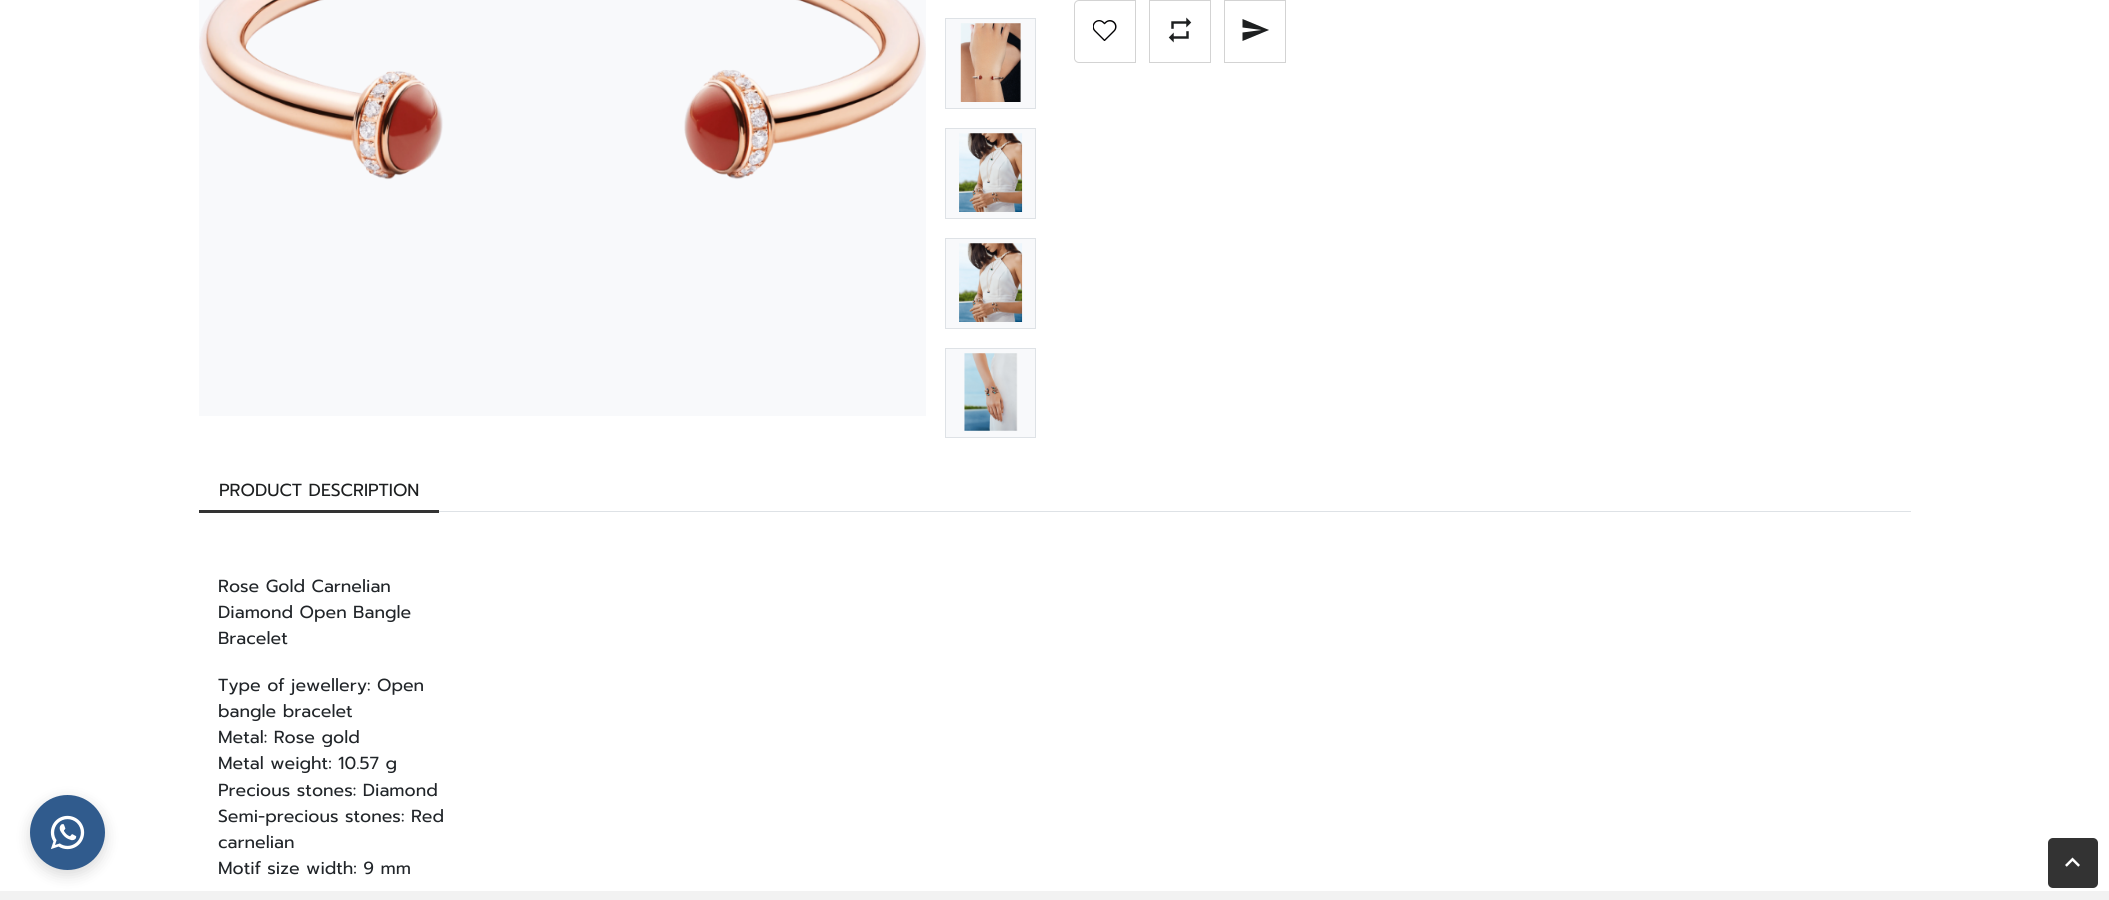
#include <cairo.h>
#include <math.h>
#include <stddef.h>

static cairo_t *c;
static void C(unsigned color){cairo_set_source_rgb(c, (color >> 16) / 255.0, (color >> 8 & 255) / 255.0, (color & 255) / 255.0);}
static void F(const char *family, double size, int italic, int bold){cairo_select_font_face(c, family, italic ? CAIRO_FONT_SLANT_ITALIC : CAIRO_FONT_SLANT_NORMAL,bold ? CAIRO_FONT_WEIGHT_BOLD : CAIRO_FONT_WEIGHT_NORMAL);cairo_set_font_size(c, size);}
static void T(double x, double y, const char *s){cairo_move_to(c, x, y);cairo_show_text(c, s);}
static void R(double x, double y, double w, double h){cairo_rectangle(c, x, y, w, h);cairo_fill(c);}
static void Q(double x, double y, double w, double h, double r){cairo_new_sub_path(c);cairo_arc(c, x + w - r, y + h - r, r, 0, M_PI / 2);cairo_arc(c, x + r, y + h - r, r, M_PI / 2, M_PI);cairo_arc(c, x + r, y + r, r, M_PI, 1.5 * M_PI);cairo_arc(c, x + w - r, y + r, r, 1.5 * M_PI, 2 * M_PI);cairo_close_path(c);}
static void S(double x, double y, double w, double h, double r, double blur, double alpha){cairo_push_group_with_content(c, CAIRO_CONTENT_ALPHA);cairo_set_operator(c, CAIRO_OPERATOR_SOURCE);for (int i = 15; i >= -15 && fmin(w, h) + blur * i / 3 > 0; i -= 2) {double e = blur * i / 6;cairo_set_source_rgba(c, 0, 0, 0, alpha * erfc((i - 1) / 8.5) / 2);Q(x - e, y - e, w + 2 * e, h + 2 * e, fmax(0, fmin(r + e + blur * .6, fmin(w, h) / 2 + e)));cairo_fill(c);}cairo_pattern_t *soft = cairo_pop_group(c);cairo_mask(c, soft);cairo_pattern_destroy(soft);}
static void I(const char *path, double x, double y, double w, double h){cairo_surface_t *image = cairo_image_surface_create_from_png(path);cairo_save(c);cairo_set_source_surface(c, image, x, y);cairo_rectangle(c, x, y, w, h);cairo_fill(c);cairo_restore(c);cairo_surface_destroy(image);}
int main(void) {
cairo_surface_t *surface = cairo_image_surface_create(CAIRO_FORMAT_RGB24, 2109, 900);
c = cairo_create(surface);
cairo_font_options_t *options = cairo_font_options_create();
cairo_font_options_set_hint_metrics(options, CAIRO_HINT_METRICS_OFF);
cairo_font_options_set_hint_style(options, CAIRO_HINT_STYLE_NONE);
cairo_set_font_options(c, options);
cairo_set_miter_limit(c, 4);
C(0xffffff);
cairo_paint(c);
C(0xf8f9fb);
R(199,0,727,416);
I("1.png",199,0,727,180);
cairo_rectangle(c,945.5,18.5,90,90);
cairo_fill_preserve(c);
C(0xdee2e6);
cairo_set_line_width(c,1);
cairo_stroke(c);
I("2.png",960,23,61,79);
C(0xf8f9fb);
cairo_rectangle(c,945.5,128.5,90,90);
cairo_fill_preserve(c);
C(0xdee2e6);
cairo_stroke(c);
I("3.png",959,133,64,79);
C(0xf8f9fb);
cairo_rectangle(c,945.5,238.5,90,90);
cairo_fill_preserve(c);
C(0xdee2e6);
cairo_stroke(c);
I("3.png",959,243,64,79);
C(0xf8f9fb);
cairo_rectangle(c,945.5,348.5,90,89);
cairo_fill_preserve(c);
C(0xdee2e6);
cairo_stroke(c);
I("4.png",964,353,54,78);
cairo_new_path(c);
cairo_move_to(c,1079,.5);
cairo_line_to(c,1135.5,.5);
cairo_line_to(c,1135.5,62.5);
cairo_line_to(c,1079,62.5);
cairo_curve_to(c,1076.5,62.5,1074.5,60.5,1074.5,58);
cairo_line_to(c,1074.5,5);
cairo_curve_to(c,1074.5,2.5,1076.5,.5,1079,.5);
cairo_close_path(c);
C(0xd3d3d3);
cairo_stroke(c);
I("5.png",1093,20,24,21);
cairo_rectangle(c,1149.5,.5,61,62);
cairo_stroke(c);
I("6.png",1168,17,24,26);
cairo_rectangle(c,1224.5,.5,61,62);
cairo_stroke(c);
C(0x1d1f20);
cairo_new_path(c);
cairo_move_to(c,1242.5,41);
cairo_line_to(c,1269,30);
cairo_line_to(c,1242.5,19);
cairo_line_to(c,1242.5,27.5);
cairo_line_to(c,1261.5,30);
cairo_line_to(c,1242.5,32.5);
cairo_close_path(c);
cairo_fill(c);
C(0xdee2e6);
R(439,511,1472,1);
F("Prompt",17.5,0,0);
C(0x1d1f20);
T(219,496,"PRODUCT DESCRIPTION");
C(0x333333);
R(199,510,240,3);
C(0x212529);
T(218,592,"Rose Gold Carnelian");
T(218,618,"Diamond Open Bangle");
T(218,644,"Bracelet");
T(218,691,"Type of jewellery: Open");
T(218,717,"bangle bracelet");
T(218,743,"Metal: Rose gold");
T(218,769,"Metal weight: 10.57 g");
T(218,796,"Precious stones: Diamond");
T(218,822,"Semi-precious stones: Red");
T(218,848,"carnelian");
T(218,874,"Motif size width: 9 mm");
C(0xf2f2f2);
R(0,891,2109,9);
C(0x000000);
S(30,800,75,75,37.5,7.5,.15);
C(0x305b8d);
cairo_arc(c,67.5,832.5,37.5,0,2 * M_PI);
cairo_fill(c);
I("7.png",50,815,35,35);
C(0x333333);
Q(2048,838,50,50,5);
cairo_fill(c);
I("8.png",2065,857,15,10);
cairo_surface_write_to_png(surface, "o.png");
cairo_font_options_destroy(options);
cairo_destroy(c);
cairo_surface_destroy(surface);
return 0;
}
